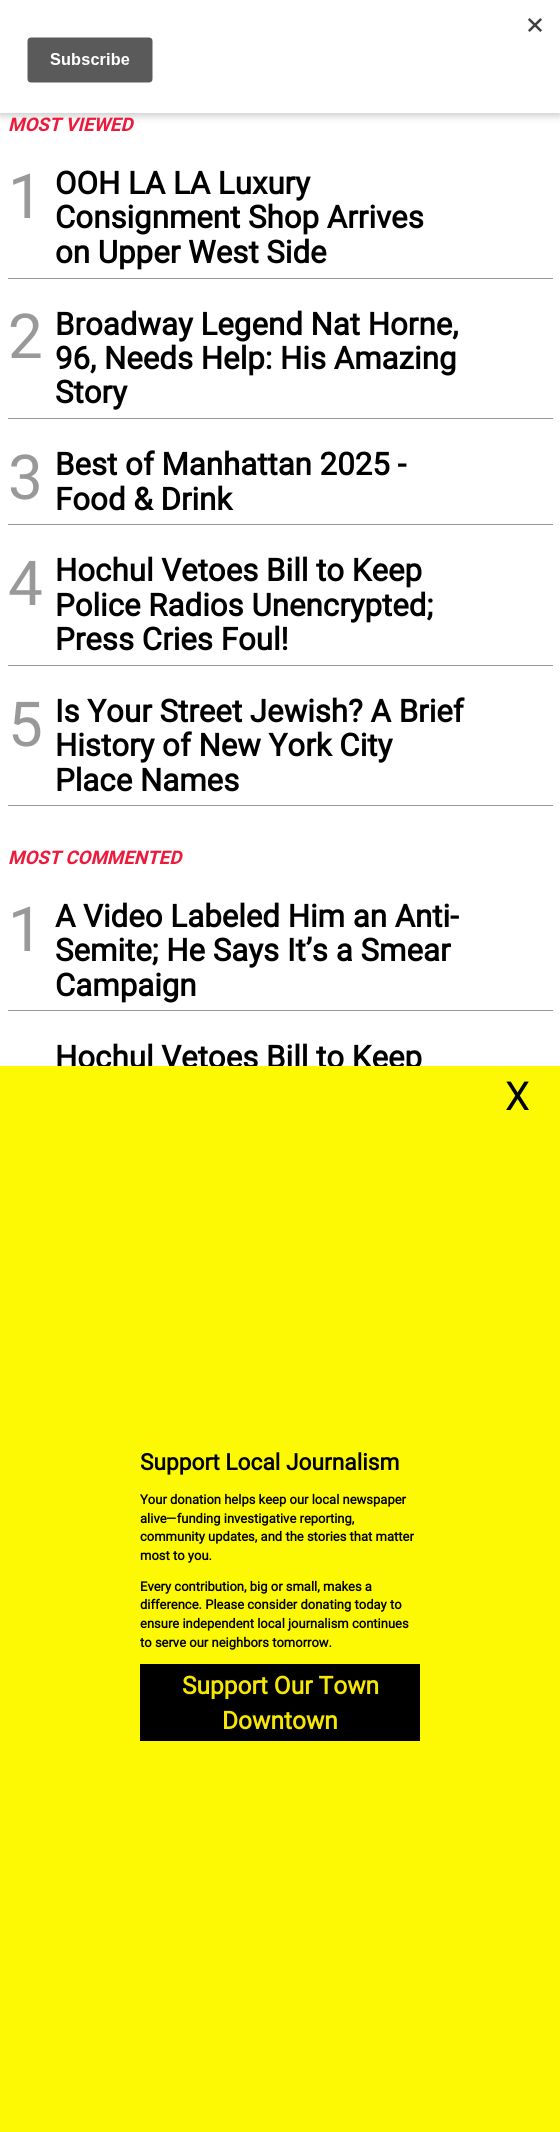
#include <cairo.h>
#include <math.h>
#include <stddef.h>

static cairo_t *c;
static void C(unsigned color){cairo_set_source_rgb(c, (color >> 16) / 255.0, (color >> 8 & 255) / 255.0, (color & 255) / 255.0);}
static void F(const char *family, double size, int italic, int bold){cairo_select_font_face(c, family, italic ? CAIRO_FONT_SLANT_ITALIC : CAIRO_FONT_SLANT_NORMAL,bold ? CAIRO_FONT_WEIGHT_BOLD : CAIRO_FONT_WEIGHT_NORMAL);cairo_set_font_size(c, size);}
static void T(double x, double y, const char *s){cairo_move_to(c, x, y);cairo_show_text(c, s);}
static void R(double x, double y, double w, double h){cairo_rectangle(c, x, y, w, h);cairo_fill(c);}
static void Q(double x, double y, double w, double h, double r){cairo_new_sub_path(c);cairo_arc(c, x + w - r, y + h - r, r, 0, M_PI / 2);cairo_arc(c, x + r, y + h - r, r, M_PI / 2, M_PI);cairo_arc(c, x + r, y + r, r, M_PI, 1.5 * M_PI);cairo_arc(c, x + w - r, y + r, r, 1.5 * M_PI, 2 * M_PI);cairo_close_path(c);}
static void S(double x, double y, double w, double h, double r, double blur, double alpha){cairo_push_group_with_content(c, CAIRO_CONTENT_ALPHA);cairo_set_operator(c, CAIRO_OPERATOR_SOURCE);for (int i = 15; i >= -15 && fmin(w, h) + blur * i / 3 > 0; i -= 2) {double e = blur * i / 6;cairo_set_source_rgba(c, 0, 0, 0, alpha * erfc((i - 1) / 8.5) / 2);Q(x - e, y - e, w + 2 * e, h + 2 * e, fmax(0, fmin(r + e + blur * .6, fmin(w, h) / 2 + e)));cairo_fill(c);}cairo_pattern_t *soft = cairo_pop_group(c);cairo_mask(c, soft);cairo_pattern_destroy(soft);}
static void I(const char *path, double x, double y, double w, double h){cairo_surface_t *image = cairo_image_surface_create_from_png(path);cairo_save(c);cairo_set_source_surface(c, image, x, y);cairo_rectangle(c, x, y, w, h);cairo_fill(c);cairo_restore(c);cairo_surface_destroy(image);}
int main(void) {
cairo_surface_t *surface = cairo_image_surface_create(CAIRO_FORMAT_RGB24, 560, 2132);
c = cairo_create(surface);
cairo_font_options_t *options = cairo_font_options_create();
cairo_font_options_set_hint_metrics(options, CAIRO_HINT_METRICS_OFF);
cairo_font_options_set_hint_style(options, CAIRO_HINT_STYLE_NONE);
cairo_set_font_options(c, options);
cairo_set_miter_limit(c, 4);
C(0xffffff);
cairo_paint(c);
C(0x000000);
S(0,4,560,112,0,4,.2);
C(0xffffff);
R(0,0,560,113);
I("1.png",27,18,515,65);
F("Roboto",18.75,1,1);
C(0xed1a3b);
T(8,131,"MOST VIEWED");
C(0x999999);
R(8,278,545,1);
F("Roboto",62,0,0);
T(8,218,"1");
F("Roboto",31.25,0,1);
C(0x000000);
T(55,194,"OOH LA LA Luxury");
T(55,228,"Consignment Shop Arrives");
T(55,263,"on Upper West Side");
C(0x999999);
R(8,418,545,1);
F("Roboto",62,0,0);
T(8,358,"2");
F("Roboto",31.25,0,1);
C(0x000000);
T(55,335,"Broadway Legend Nat Horne,");
T(55,369,"96, Needs Help: His Amazing");
T(55,403,"Story");
C(0x999999);
R(8,524,545,1);
F("Roboto",62,0,0);
T(8,499,"3");
F("Roboto",31.25,0,1);
C(0x000000);
T(55,475,"Best of Manhattan 2025 -");
T(55,510,"Food & Drink");
C(0x999999);
R(8,665,545,1);
F("Roboto",62,0,0);
T(8,605,"4");
F("Roboto",31.25,0,1);
C(0x000000);
T(55,581,"Hochul Vetoes Bill to Keep");
T(55,616,"Police Radios Unencrypted;");
T(55,650,"Press Cries Foul!");
C(0x999999);
R(8,805,545,1);
F("Roboto",62,0,0);
T(8,746,"5");
F("Roboto",31.25,0,1);
C(0x000000);
T(55,722,"Is Your Street Jewish? A Brief");
T(55,756,"History of New York City");
T(55,791,"Place Names");
F("Roboto",18.75,1,1);
C(0xed1a3b);
T(8,864,"MOST COMMENTED");
C(0x999999);
R(8,1010,545,1);
F("Roboto",62,0,0);
T(8,951,"1");
F("Roboto",31.25,0,1);
C(0x000000);
T(55,927,"A Video Labeled Him an Anti-");
T(55,961,"Semite; He Says It’s a Smear");
T(55,996,"Campaign");
T(55,1068,"Hochul Vetoes Bill to Keep");
C(0xfdf904);
R(0,1066,560,1066);
F("Roboto",40,0,0);
C(0x000000);
T(505,1110,"X");
F("Roboto",22.75,0,1);
T(140,1470,"Support Local Journalism");
F("Roboto",13,0,1);
T(140,1504,"Your donation helps keep our local newspaper");
T(140,1523,"alive—funding investigative reporting,");
T(140,1541,"community updates, and the stories that matter");
T(140,1560,"most to you.");
T(140,1591,"Every contribution, big or small, makes a");
T(140,1609,"difference. Please consider donating today to");
T(140,1628,"ensure independent local journalism continues");
T(140,1647,"to serve our neighbors tomorrow.");
R(140,1664,280,77);
F("Roboto",24.5,0,1);
C(0xf6e604);
T(182,1694,"Support Our Town");
T(222,1729,"Downtown");
cairo_surface_write_to_png(surface, "o.png");
cairo_font_options_destroy(options);
cairo_destroy(c);
cairo_surface_destroy(surface);
return 0;
}
